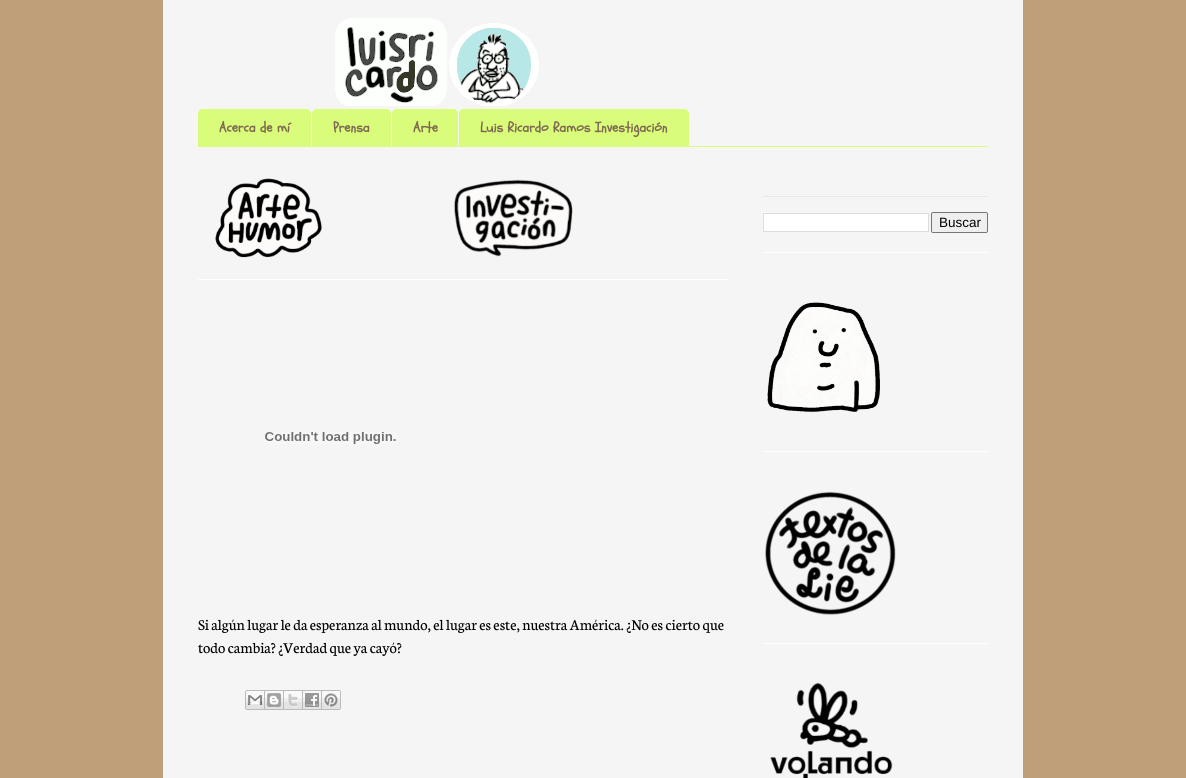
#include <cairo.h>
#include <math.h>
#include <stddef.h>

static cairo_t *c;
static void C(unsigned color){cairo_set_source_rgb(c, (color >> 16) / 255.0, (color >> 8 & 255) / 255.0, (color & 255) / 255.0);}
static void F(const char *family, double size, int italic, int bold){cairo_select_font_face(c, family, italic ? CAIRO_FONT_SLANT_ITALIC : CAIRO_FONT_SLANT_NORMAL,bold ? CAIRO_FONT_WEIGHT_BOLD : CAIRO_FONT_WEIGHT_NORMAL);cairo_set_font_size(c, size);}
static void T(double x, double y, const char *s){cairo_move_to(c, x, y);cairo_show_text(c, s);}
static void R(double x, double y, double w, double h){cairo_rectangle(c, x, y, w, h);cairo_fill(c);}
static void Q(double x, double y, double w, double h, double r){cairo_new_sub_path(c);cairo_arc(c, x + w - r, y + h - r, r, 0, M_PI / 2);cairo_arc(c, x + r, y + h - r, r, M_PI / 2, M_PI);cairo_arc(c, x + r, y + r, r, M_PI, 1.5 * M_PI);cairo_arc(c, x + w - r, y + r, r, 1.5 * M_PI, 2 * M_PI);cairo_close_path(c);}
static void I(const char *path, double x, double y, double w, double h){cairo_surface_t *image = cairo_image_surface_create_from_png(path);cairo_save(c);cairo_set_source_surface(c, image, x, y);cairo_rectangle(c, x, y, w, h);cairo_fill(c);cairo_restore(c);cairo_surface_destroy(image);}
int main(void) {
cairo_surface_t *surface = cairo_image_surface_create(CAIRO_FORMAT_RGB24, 1186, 778);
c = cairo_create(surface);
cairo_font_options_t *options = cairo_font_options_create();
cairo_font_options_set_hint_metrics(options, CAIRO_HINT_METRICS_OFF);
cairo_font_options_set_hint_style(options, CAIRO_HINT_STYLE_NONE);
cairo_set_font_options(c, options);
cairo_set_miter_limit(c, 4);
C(0xbf9f7a);
cairo_paint(c);
C(0xf5f5f5);
R(163,0,860,778);
I("1.png",335,18,204,88);
C(0xdafc7b);
R(198,146,790,1);
cairo_new_path(c);
cairo_move_to(c,203,109);
cairo_line_to(c,306,109);
cairo_curve_to(c,309,109,311,111,311,114);
cairo_line_to(c,311,146);
cairo_line_to(c,198,146);
cairo_line_to(c,198,114);
cairo_curve_to(c,198,111,200,109,203,109);
cairo_close_path(c);
cairo_fill(c);
F("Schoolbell",14,0,1);
C(0x7f6a51);
T(219,132,"Acerca de mí");
C(0xdafc7b);
cairo_new_path(c);
cairo_move_to(c,317,109);
cairo_line_to(c,386,109);
cairo_curve_to(c,389,109,391,111,391,114);
cairo_line_to(c,391,146);
cairo_line_to(c,312,146);
cairo_line_to(c,312,114);
cairo_curve_to(c,312,111,314,109,317,109);
cairo_close_path(c);
cairo_fill(c);
C(0x7f6a51);
T(333,132,"Prensa");
C(0xdafc7b);
cairo_new_path(c);
cairo_move_to(c,397,109);
cairo_line_to(c,453,109);
cairo_curve_to(c,456,109,458,111,458,114);
cairo_line_to(c,458,146);
cairo_line_to(c,392,146);
cairo_line_to(c,392,114);
cairo_curve_to(c,392,111,394,109,397,109);
cairo_close_path(c);
cairo_fill(c);
C(0x7f6a51);
T(413,132,"Arte");
C(0xdafc7b);
cairo_new_path(c);
cairo_move_to(c,464,109);
cairo_line_to(c,684,109);
cairo_curve_to(c,687,109,689,111,689,114);
cairo_line_to(c,689,146);
cairo_line_to(c,459,146);
cairo_line_to(c,459,114);
cairo_curve_to(c,459,111,461,109,464,109);
cairo_close_path(c);
cairo_fill(c);
C(0x7f6a51);
T(480,132,"Luis Ricardo Ramos Investigación");
C(0xffffff);
R(763,252,225,1);
C(0xe8e8e8);
R(763,196,225,1);
C(0xffffff);
cairo_rectangle(c,763.5,213.5,165,18);
cairo_fill_preserve(c);
C(0xdddddd);
cairo_set_line_width(c,1);
cairo_stroke(c);
C(0xefefef);
Q(931.5,212.5,56,20,1.5);
cairo_fill_preserve(c);
C(0x767676);
cairo_stroke(c);
F("Liberation Sans",13.5,0,0);
C(0x000000);
T(939,227,"Buscar");
C(0xffffff);
R(763,451,225,1);
I("2.png",767,302,113,110);
R(763,643,225,1);
I("3.png",765,491,131,124);
I("4.png",770,683,123,95);
R(198,279,530,1);
I("5.png",215,178,107,80);
I("6.png",454,179,119,78);
I("7.png",265,432,131,12);
F("Neuton",16,0,0);
C(0x000000);
T(198,630,"Si algún lugar le da esperanza al mundo, el lugar es este, nuestra América. ¿No es cierto que");
T(198,653,"todo cambia? ¿Verdad que ya cayó?");
I("8.png",245,690,20,20);
I("9.png",265,690,19,20);
I("10.png",284,690,19,20);
I("11.png",303,690,19,20);
I("12.png",322,690,19,20);
cairo_surface_write_to_png(surface, "o.png");
cairo_font_options_destroy(options);
cairo_destroy(c);
cairo_surface_destroy(surface);
return 0;
}
